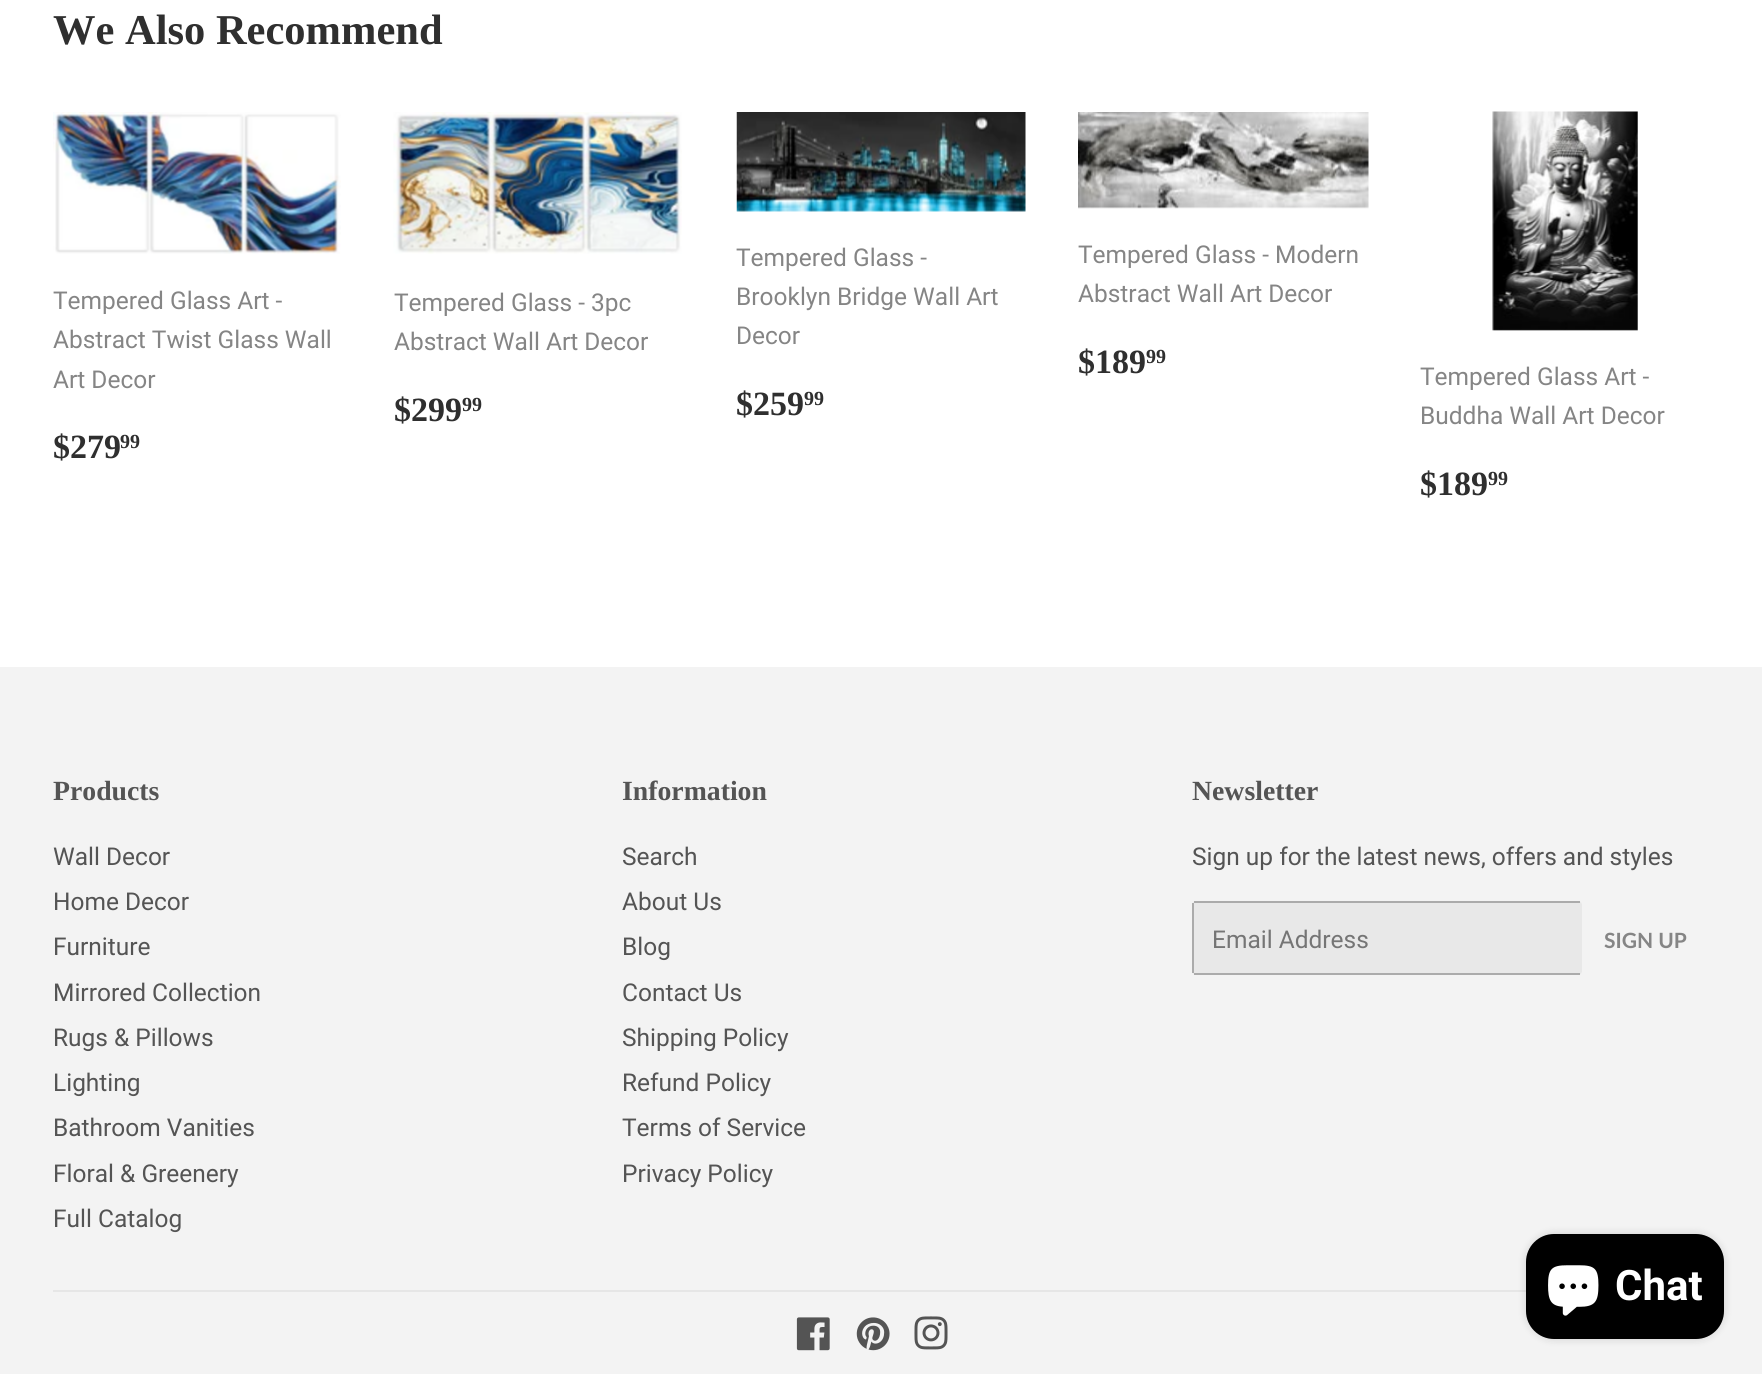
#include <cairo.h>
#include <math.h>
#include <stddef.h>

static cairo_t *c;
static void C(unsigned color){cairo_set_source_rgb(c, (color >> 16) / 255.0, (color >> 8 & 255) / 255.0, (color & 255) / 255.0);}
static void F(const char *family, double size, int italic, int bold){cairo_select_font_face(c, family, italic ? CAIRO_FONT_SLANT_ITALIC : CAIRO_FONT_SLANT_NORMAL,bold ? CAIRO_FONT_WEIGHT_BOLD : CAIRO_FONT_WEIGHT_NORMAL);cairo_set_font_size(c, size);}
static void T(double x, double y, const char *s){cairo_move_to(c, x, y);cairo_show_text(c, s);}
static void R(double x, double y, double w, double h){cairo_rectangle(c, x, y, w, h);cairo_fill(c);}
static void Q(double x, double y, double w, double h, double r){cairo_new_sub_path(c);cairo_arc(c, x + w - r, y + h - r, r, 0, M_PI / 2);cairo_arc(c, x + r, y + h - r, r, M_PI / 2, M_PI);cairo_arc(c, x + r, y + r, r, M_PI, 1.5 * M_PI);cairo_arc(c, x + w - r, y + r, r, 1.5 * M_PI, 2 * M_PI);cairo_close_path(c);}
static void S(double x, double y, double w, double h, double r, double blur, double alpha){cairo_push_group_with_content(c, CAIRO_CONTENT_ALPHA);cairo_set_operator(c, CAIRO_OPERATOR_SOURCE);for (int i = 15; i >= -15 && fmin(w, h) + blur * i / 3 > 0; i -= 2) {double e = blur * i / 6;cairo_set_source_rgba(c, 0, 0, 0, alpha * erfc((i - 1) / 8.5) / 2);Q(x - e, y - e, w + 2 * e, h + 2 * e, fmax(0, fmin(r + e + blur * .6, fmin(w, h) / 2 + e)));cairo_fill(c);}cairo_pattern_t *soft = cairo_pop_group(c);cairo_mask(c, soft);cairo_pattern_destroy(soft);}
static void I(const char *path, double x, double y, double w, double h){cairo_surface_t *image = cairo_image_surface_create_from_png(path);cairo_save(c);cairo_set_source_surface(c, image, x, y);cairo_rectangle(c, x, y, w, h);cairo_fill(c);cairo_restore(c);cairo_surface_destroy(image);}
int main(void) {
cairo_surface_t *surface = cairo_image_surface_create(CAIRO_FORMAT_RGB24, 1762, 1374);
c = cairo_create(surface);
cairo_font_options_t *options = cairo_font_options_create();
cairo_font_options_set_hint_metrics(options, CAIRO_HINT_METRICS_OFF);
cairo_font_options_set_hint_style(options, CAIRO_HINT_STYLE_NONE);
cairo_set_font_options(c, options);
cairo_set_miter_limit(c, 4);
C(0xffffff);
cairo_paint(c);
F("Liberation Serif",42.5,0,1);
C(0x2f2f2f);
T(53,44,"We Also Recommend");
I("1.png",53,112,288,142);
F("Roboto",24.5,0,0);
C(0x858585);
T(53,309,"Tempered Glass Art -");
T(53,348,"Abstract Twist Glass Wall");
T(53,388,"Art Decor");
F("Liberation Serif",34,0,1);
C(0x2f2f2f);
T(53,458,"$279");
F("Liberation Serif",20,0,1);
T(120,448,"99");
I("2.png",393,112,289,142);
F("Roboto",24.5,0,0);
C(0x858585);
T(394,311,"Tempered Glass - 3pc");
T(394,350,"Abstract Wall Art Decor");
F("Liberation Serif",34,0,1);
C(0x2f2f2f);
T(394,421,"$299");
F("Liberation Serif",20,0,1);
T(462,411,"99");
I("3.png",736,112,290,100);
F("Roboto",24.5,0,0);
C(0x858585);
T(736,266,"Tempered Glass -");
T(736,305,"Brooklyn Bridge Wall Art");
T(736,344,"Decor");
F("Liberation Serif",34,0,1);
C(0x2f2f2f);
T(736,415,"$259");
F("Liberation Serif",20,0,1);
T(804,405,"99");
I("4.png",1078,112,291,97);
F("Roboto",24.5,0,0);
C(0x858585);
T(1078,263,"Tempered Glass - Modern");
T(1078,302,"Abstract Wall Art Decor");
F("Liberation Serif",34,0,1);
C(0x2f2f2f);
T(1078,373,"$189");
F("Liberation Serif",20,0,1);
T(1146,363,"99");
I("5.png",1492,111,146,220);
F("Roboto",24.5,0,0);
C(0x858585);
T(1420,385,"Tempered Glass Art -");
T(1420,424,"Buddha Wall Art Decor");
F("Liberation Serif",34,0,1);
C(0x2f2f2f);
T(1420,495,"$189");
F("Liberation Serif",20,0,1);
T(1488,485,"99");
C(0xf3f3f3);
R(0,667,1762,707);
F("Liberation Serif",27.75,0,1);
C(0x545454);
T(53,800,"Products");
F("Roboto",24.5,0,0);
T(53,865,"Wall Decor");
T(53,910,"Home Decor");
T(53,955,"Furniture");
T(53,1001,"Mirrored Collection");
T(53,1046,"Rugs & Pillows");
T(53,1091,"Lighting");
T(53,1136,"Bathroom Vanities");
T(53,1182,"Floral & Greenery");
T(53,1227,"Full Catalog");
F("Liberation Serif",27.75,0,1);
T(622,800,"Information");
F("Roboto",24.5,0,0);
T(622,865,"Search");
T(622,910,"About Us");
T(622,955,"Blog");
T(622,1001,"Contact Us");
T(622,1046,"Shipping Policy");
T(622,1091,"Refund Policy");
T(622,1136,"Terms of Service");
T(622,1182,"Privacy Policy");
F("Liberation Serif",27.75,0,1);
T(1192,800,"Newsletter");
F("Roboto",24.5,0,0);
T(1192,865,"Sign up for the latest news, offers and styles");
C(0xe8e8e8);
Q(1192,901,390,74,4);
cairo_fill(c);
C(0xababab);
R(1194,901,386,2);
R(1194,973,386,2);
R(1192,903,2,70);
C(0x757575);
T(1212,948,"Email Address");
F("Lato",21,0,1);
C(0x858585);
T(1604,948,"SIGN UP");
C(0xe6e6e6);
R(53,1290,1473,2);
I("6.png",796,1317,34,34);
I("7.png",856,1317,34,34);
I("8.png",914,1316,34,34);
C(0x000000);
S(1526,1234,198,105,28,4.5,.15);
C(0x000000);
Q(1526,1234,198,105,28);
cairo_fill(c);
I("9.png",1548,1265,51,51);
F("Roboto",42,0,1);
C(0xffffff);
T(1615,1300,"Chat");
cairo_surface_write_to_png(surface, "o.png");
cairo_font_options_destroy(options);
cairo_destroy(c);
cairo_surface_destroy(surface);
return 0;
}
